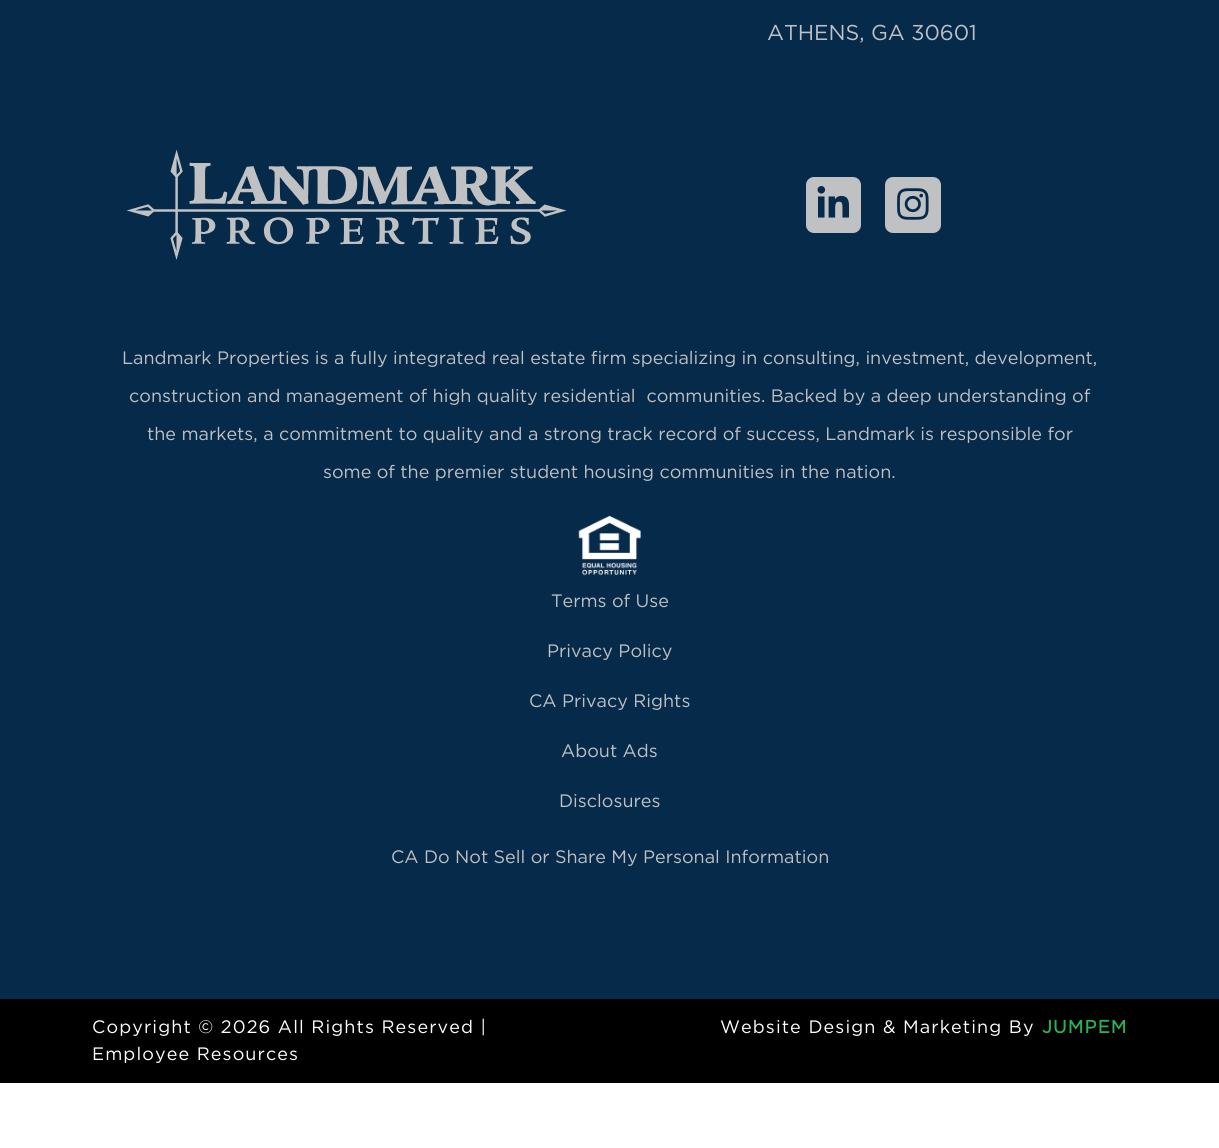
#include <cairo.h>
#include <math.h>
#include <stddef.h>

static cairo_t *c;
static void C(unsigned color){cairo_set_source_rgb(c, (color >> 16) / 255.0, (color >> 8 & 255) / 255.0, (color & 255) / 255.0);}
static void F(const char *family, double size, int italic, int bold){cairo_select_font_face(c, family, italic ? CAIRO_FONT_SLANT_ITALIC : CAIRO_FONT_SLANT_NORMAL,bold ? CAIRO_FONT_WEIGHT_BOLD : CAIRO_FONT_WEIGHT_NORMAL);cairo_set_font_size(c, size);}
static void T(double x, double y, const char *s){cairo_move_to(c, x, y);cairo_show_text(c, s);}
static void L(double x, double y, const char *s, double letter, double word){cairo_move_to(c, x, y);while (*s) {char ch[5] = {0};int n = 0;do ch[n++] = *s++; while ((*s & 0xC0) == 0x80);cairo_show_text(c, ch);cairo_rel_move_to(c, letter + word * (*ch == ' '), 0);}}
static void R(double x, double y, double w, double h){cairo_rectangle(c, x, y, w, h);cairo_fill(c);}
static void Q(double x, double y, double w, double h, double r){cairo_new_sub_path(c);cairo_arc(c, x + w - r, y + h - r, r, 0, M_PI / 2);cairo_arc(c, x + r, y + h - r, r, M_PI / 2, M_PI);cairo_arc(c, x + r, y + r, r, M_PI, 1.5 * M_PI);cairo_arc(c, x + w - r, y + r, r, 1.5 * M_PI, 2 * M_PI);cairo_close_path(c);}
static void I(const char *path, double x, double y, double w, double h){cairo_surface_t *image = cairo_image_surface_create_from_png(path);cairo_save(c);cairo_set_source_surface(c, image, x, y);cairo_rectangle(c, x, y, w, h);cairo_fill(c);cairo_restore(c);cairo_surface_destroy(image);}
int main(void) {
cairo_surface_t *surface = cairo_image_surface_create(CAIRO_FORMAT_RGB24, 1219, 1148);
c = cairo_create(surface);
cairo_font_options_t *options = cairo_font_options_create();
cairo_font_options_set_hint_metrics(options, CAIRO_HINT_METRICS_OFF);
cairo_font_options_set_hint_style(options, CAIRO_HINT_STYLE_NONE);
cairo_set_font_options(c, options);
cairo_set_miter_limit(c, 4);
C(0xffffff);
cairo_paint(c);
C(0x062a49);
R(0,0,1219,999);
F("Gotham",21.5,0,0);
C(0xc0c1c3);
T(767,40,"ATHENS, GA 30601");
I("1.png",126,149,441,111);
Q(806,177,55,56,8);
cairo_fill(c);
I("2.png",817,186,32,32);
Q(885,177,56,56,8);
cairo_fill(c);
I("3.png",897,188,32,32);
F("Gotham",18,0,0);
T(122,364,"Landmark Properties is a fully integrated real estate firm specializing in consulting, investment, development,");
T(129,402,"construction and management of high quality residential  communities. Backed by a deep understanding of");
T(147,440,"the markets, a commitment to quality and a strong track record of success, Landmark is responsible for");
T(323,478,"some of the premier student housing communities in the nation.");
I("4.png",578,515,63,61);
T(551,607,"Terms of Use");
T(547,657,"Privacy Policy");
T(529,707,"CA Privacy Rights");
T(561,757,"About Ads");
T(559,807,"Disclosures");
T(391,863,"CA Do Not Sell or Share My Personal Information");
C(0x000000);
R(0,999,1219,84);
C(0xffffff);
L(92,1033,"Copyright © 2026 All Rights Reserved |",1.1,0);
L(92,1060,"Employee Resources",1.1,0);
L(720,1033,"Website Design & Marketing By",1.1,0);
F("Gotham",18,0,1);
C(0x29b354);
L(1042,1033,"JUMPEM",1.1,0);
cairo_surface_write_to_png(surface, "o.png");
cairo_font_options_destroy(options);
cairo_destroy(c);
cairo_surface_destroy(surface);
return 0;
}
